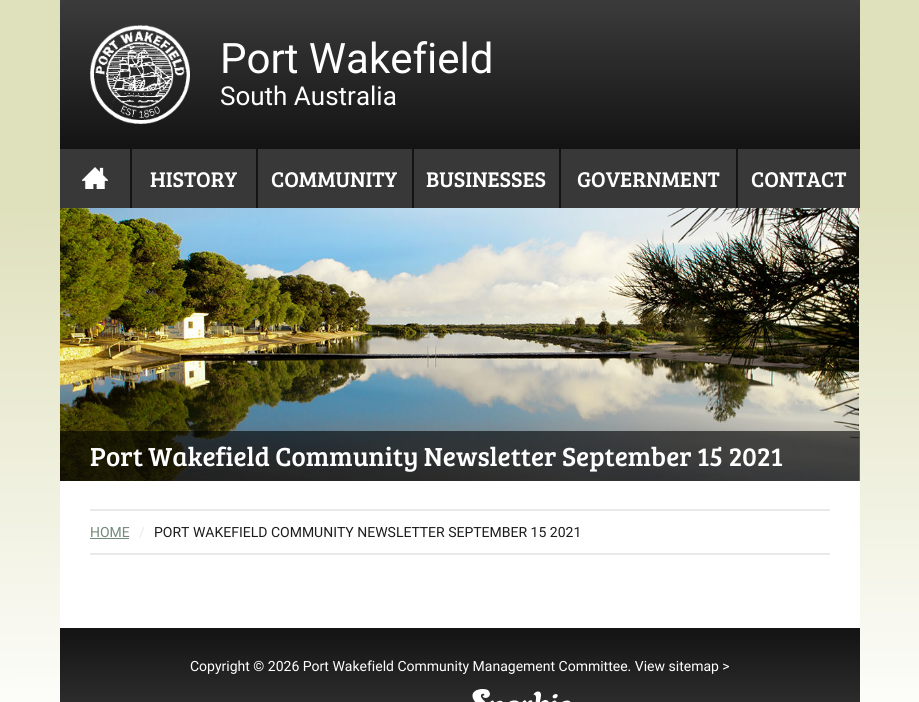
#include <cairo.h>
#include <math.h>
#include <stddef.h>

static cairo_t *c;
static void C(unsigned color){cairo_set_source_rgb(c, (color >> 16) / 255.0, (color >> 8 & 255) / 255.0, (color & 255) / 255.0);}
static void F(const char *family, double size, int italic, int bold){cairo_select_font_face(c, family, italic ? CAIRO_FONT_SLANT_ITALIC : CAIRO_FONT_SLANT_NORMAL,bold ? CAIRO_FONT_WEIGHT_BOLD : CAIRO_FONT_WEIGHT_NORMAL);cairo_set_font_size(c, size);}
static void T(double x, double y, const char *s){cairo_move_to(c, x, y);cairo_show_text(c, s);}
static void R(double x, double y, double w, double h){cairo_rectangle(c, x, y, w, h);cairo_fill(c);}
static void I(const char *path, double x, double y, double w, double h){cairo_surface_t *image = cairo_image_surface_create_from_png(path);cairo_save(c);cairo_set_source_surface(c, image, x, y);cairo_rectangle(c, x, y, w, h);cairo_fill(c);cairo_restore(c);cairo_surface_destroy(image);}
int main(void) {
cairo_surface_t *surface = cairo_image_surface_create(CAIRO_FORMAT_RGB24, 919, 702);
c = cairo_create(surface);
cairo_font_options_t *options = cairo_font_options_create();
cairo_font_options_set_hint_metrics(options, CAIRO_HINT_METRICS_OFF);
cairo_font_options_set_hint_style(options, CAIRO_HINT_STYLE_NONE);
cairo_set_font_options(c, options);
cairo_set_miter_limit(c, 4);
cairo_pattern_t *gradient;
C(0xffffff);
cairo_paint(c);
gradient = cairo_pattern_create_linear(459,0,460,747);
cairo_pattern_add_color_stop_rgba(gradient,.27,0.875,0.878,0.737,1);
cairo_pattern_add_color_stop_rgba(gradient,1,1,1,1,1);
cairo_set_source(c,gradient);
cairo_pattern_destroy(gradient);
R(0,0,919,702);
gradient = cairo_pattern_create_linear(460,0,460,149);
cairo_pattern_add_color_stop_rgba(gradient,0,0.231,0.231,0.231,1);
cairo_pattern_add_color_stop_rgba(gradient,1,0.075,0.075,0.075,1);
cairo_set_source(c,gradient);
cairo_pattern_destroy(gradient);
R(60,0,800,149);
I("1.png",90,25,100,99);
F("Roboto",42,0,0);
C(0xffffff);
T(220,73,"Port Wakefield");
F("Roboto",26,0,0);
T(220,105,"South Australia");
C(0x383838);
R(60,149,800,59);
I("2.png",82,167,26,22);
C(0x131313);
R(130,149,2,59);
F("Bree Serif",22,0,0);
C(0xffffff);
T(150,187,"HISTORY");
C(0x131313);
R(256,149,2,59);
C(0xffffff);
T(271,187,"COMMUNITY");
C(0x131313);
R(412,149,2,59);
C(0xffffff);
T(426,187,"BUSINESSES");
C(0x131313);
R(559,149,2,59);
C(0xffffff);
T(577,187,"GOVERNMENT");
C(0x131313);
R(736,149,2,59);
C(0xffffff);
T(751,187,"CONTACT");
I("3.png",60,208,799,273);
cairo_set_source_rgba(c,0,0,0,0.6);
R(60,431,800,50);
F("Bree Serif",27,0,0);
C(0xffffff);
T(90,466,"Port Wakefield Community Newsletter September 15 2021");
R(60,481,800,147);
C(0xe9e9e9);
R(90,509,740,2);
R(90,553,740,2);
F("Roboto",14,0,0);
C(0x738a77);
T(90,537,"HOME");
R(90,538,39,1);
C(0xe9e9e9);
T(139,537,"/");
C(0x1c1c1c);
T(154,537,"PORT WAKEFIELD COMMUNITY NEWSLETTER SEPTEMBER 15 2021");
gradient = cairo_pattern_create_linear(460,628,460,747);
cairo_pattern_add_color_stop_rgba(gradient,0,0.075,0.075,0.075,1);
cairo_pattern_add_color_stop_rgba(gradient,1,0.231,0.231,0.231,1);
cairo_set_source(c,gradient);
cairo_pattern_destroy(gradient);
R(60,628,800,74);
C(0xffffff);
T(190,671,"Copyright © 2026 Port Wakefield Community Management Committee. View sitemap >");
I("4.png",472,689,99,13);
cairo_surface_write_to_png(surface, "o.png");
cairo_font_options_destroy(options);
cairo_destroy(c);
cairo_surface_destroy(surface);
return 0;
}
